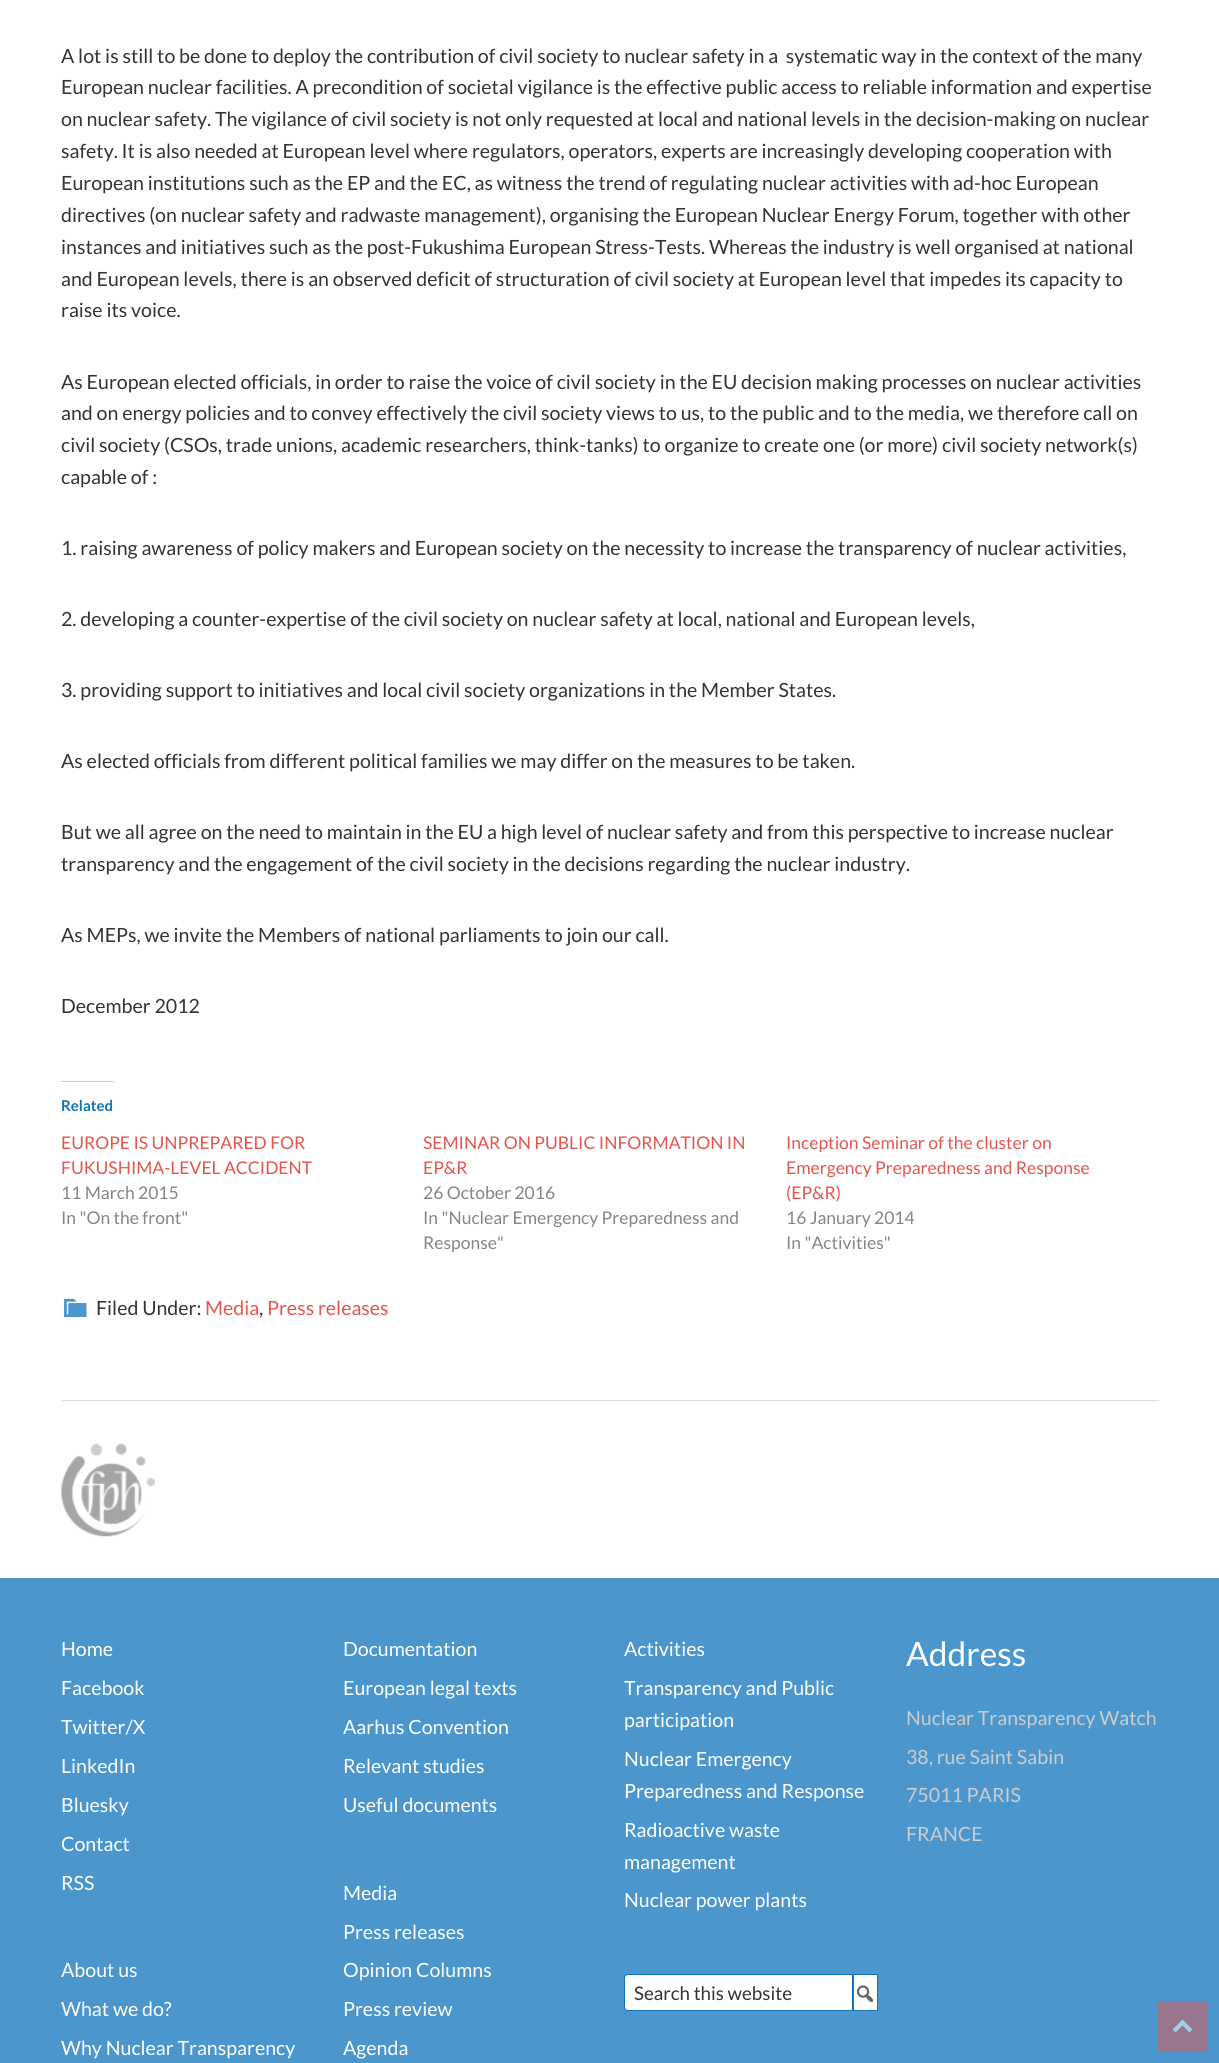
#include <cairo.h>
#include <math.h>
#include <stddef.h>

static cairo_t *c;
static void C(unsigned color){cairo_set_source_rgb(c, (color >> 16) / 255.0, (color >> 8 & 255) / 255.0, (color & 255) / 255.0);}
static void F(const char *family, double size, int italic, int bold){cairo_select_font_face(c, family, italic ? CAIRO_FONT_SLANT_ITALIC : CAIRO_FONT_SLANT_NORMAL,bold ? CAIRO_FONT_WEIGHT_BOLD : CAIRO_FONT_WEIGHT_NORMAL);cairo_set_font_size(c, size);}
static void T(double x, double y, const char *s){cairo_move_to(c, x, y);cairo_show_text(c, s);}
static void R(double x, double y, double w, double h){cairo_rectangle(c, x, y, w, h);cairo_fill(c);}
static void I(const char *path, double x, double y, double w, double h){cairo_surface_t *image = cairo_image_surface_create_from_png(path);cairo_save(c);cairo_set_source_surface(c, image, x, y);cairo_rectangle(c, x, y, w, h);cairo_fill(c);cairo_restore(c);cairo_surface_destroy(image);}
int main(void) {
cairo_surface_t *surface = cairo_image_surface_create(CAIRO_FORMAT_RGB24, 1219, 2063);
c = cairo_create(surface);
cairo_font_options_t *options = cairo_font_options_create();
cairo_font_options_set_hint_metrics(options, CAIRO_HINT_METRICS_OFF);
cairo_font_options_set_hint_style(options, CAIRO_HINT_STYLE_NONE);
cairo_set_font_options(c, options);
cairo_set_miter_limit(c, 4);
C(0xffffff);
cairo_paint(c);
F("Lato",19.6,0,0);
C(0x333333);
T(61,63,"A lot is still to be done to deploy the contribution of civil society to nuclear safety in a  systematic way in the context of the many");
T(61,94,"European nuclear facilities. A precondition of societal vigilance is the effective public access to reliable information and expertise");
T(61,126,"on nuclear safety. The vigilance of civil society is not only requested at local and national levels in the decision-making on nuclear");
T(61,158,"safety. It is also needed at European level where regulators, operators, experts are increasingly developing cooperation with");
T(61,190,"European institutions such as the EP and the EC, as witness the trend of regulating nuclear activities with ad-hoc European");
T(61,222,"directives (on nuclear safety and radwaste management), organising the European Nuclear Energy Forum, together with other");
T(61,254,"instances and initiatives such as the post-Fukushima European Stress-Tests. Whereas the industry is well organised at national");
T(61,286,"and European levels, there is an observed deficit of structuration of civil society at European level that impedes its capacity to");
T(61,317,"raise its voice.");
T(61,389,"As European elected officials, in order to raise the voice of civil society in the EU decision making processes on nuclear activities");
T(61,420,"and on energy policies and to convey effectively the civil society views to us, to the public and to the media, we therefore call on");
T(61,452,"civil society (CSOs, trade unions, academic researchers, think-tanks) to organize to create one (or more) civil society network(s)");
T(61,484,"capable of :");
T(61,555,"1. raising awareness of policy makers and European society on the necessity to increase the transparency of nuclear activities,");
T(61,626,"2. developing a counter-expertise of the civil society on nuclear safety at local, national and European levels,");
T(61,697,"3. providing support to initiatives and local civil society organizations in the Member States.");
T(61,768,"As elected officials from different political families we may differ on the measures to be taken.");
T(61,839,"But we all agree on the need to maintain in the EU a high level of nuclear safety and from this perspective to increase nuclear");
T(61,871,"transparency and the engagement of the civil society in the decisions regarding the nuclear industry.");
T(61,942,"As MEPs, we invite the Members of national parliaments to join our call.");
T(61,1013,"December 2012");
C(0xcccccc);
R(61,1081,53,1);
F("Lato",15,0,1);
C(0x0f75bd);
T(61,1111,"Related");
F("Lato",17.5,0,0);
C(0xe5554e);
T(61,1149,"EUROPE IS UNPREPARED FOR");
T(61,1174,"FUKUSHIMA-LEVEL ACCIDENT");
C(0x858585);
T(61,1199,"11 March 2015");
T(61,1224,"In \"On the front\"");
C(0xe5554e);
T(423,1149,"SEMINAR ON PUBLIC INFORMATION IN");
T(423,1174,"EP&R");
C(0x858585);
T(423,1199,"26 October 2016");
T(423,1224,"In \"Nuclear Emergency Preparedness and");
T(423,1249,"Response\"");
C(0xe5554e);
T(786,1149,"Inception Seminar of the cluster on");
T(786,1174,"Emergency Preparedness and Response");
T(786,1199,"(EP&R)");
C(0x858585);
T(786,1224,"16 January 2014");
T(786,1249,"In \"Activities\"");
I("1.png",64,1298,23,20);
F("Lato",19.6,0,0);
C(0x333333);
T(96,1315,"Filed Under:");
C(0xe5554e);
T(205,1315,"Media");
C(0x333333);
T(259,1315,",");
C(0xe5554e);
T(267,1315,"Press releases");
C(0xdddddd);
R(61,1400,1098,1);
I("2.png",61,1443,94,94);
C(0x4b97cd);
R(0,1578,1219,485);
C(0xffffff);
T(61,1656,"Home");
T(61,1695,"Facebook");
T(61,1734,"Twitter/X");
T(61,1773,"LinkedIn");
T(61,1812,"Bluesky");
T(61,1851,"Contact");
T(61,1890,"RSS");
T(61,1977,"About us");
T(61,2016,"What we do?");
T(61,2055,"Why Nuclear Transparency");
T(343,1656,"Documentation");
T(343,1695,"European legal texts");
T(343,1734,"Aarhus Convention");
T(343,1773,"Relevant studies");
T(343,1812,"Useful documents");
T(343,1900,"Media");
T(343,1939,"Press releases");
T(343,1977,"Opinion Columns");
T(343,2016,"Press review");
T(343,2055,"Agenda");
T(624,1656,"Activities");
T(624,1695,"Transparency and Public");
T(624,1727,"participation");
T(624,1766,"Nuclear Emergency");
T(624,1798,"Preparedness and Response");
T(624,1837,"Radioactive waste");
T(624,1869,"management");
T(624,1907,"Nuclear power plants");
cairo_new_path(c);
cairo_move_to(c,628,1974.5);
cairo_line_to(c,852.5,1974.5);
cairo_line_to(c,852.5,2010.5);
cairo_line_to(c,628,2010.5);
cairo_curve_to(c,626,2010.5,624.5,2009,624.5,2007);
cairo_line_to(c,624.5,1978);
cairo_curve_to(c,624.5,1976,626,1974.5,628,1974.5);
cairo_close_path(c);
cairo_fill_preserve(c);
C(0x0f75bd);
cairo_set_line_width(c,1);
cairo_stroke(c);
F("Lato",18.75,0,0);
C(0x333333);
T(634,2000,"Search this website");
C(0xffffff);
cairo_rectangle(c,853.5,1974.5,24,36);
cairo_fill_preserve(c);
C(0x0f75bd);
cairo_stroke(c);
I("3.png",856,1985,18,18);
F("Lato",33.5,0,0);
C(0xffffff);
T(906,1666,"Address");
F("Lato",19.6,0,0);
C(0xcccccc);
T(906,1725,"Nuclear Transparency Watch");
T(906,1764,"38, rue Saint Sabin");
T(906,1802,"75011 PARIS");
T(906,1841,"FRANCE");
C(0x98768e);
R(1158,2001,50,50);
C(0xa5cbe6);
cairo_new_path(c);
cairo_move_to(c,1182.5,2019.5);
cairo_line_to(c,1192.5,2029.5);
cairo_line_to(c,1189.5,2032.5);
cairo_line_to(c,1182.5,2025.5);
cairo_line_to(c,1175.5,2032.5);
cairo_line_to(c,1172.5,2029.5);
cairo_close_path(c);
cairo_fill(c);
cairo_surface_write_to_png(surface, "o.png");
cairo_font_options_destroy(options);
cairo_destroy(c);
cairo_surface_destroy(surface);
return 0;
}
